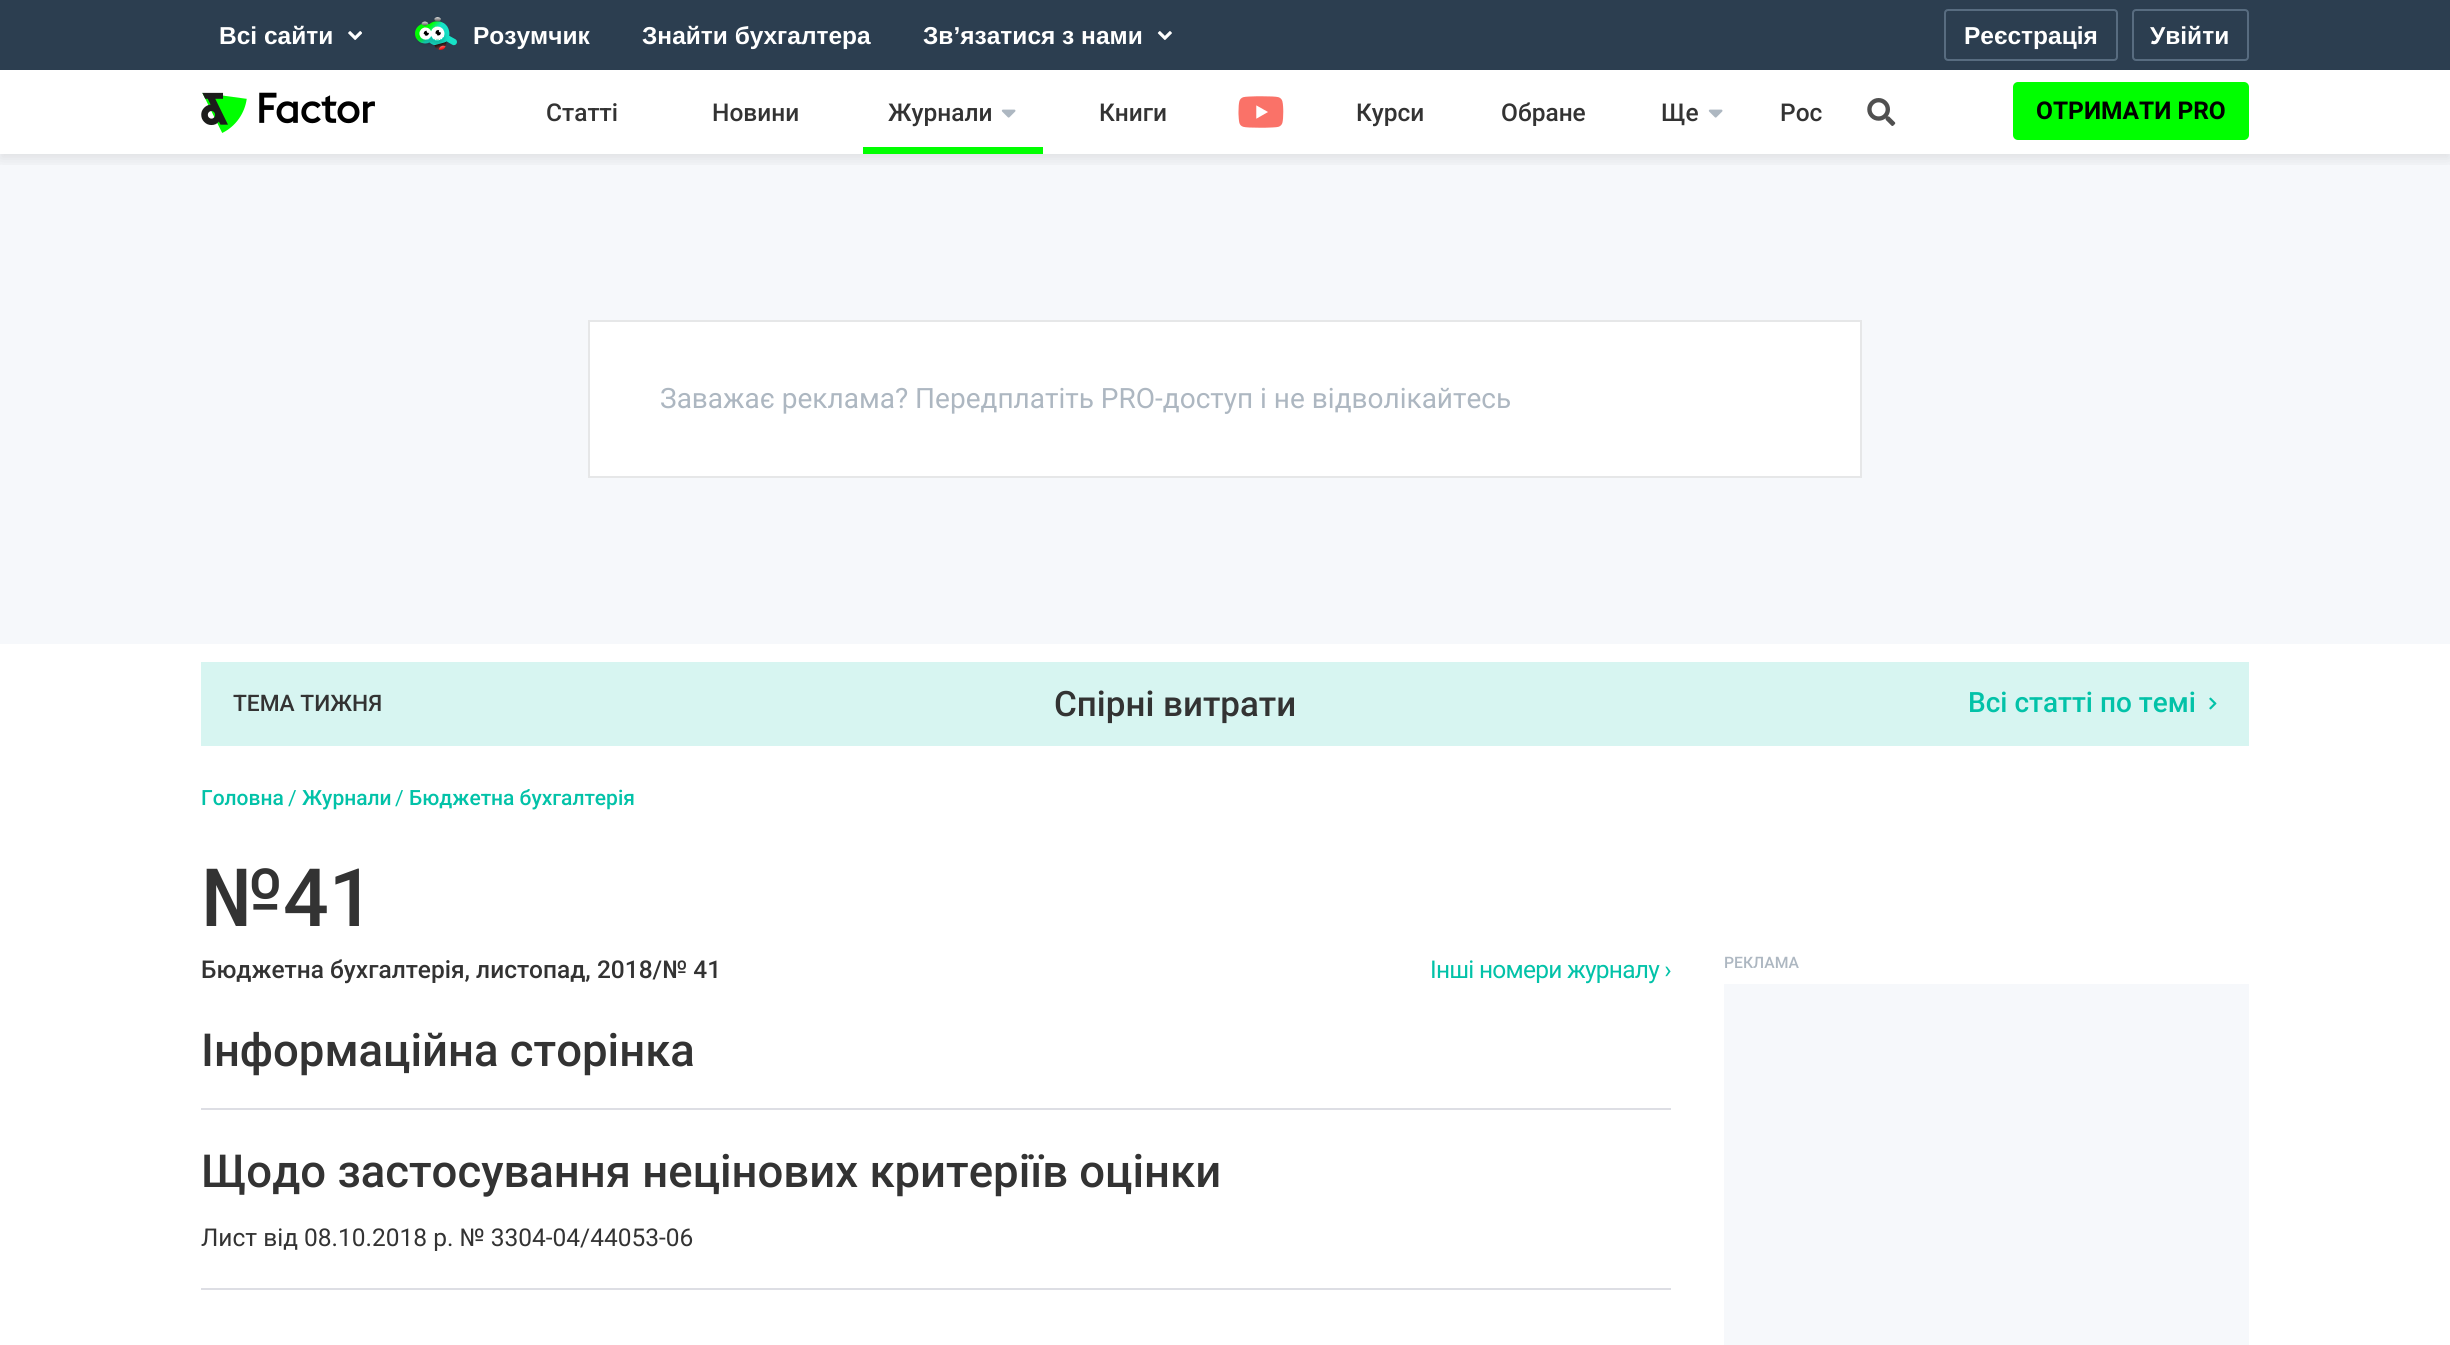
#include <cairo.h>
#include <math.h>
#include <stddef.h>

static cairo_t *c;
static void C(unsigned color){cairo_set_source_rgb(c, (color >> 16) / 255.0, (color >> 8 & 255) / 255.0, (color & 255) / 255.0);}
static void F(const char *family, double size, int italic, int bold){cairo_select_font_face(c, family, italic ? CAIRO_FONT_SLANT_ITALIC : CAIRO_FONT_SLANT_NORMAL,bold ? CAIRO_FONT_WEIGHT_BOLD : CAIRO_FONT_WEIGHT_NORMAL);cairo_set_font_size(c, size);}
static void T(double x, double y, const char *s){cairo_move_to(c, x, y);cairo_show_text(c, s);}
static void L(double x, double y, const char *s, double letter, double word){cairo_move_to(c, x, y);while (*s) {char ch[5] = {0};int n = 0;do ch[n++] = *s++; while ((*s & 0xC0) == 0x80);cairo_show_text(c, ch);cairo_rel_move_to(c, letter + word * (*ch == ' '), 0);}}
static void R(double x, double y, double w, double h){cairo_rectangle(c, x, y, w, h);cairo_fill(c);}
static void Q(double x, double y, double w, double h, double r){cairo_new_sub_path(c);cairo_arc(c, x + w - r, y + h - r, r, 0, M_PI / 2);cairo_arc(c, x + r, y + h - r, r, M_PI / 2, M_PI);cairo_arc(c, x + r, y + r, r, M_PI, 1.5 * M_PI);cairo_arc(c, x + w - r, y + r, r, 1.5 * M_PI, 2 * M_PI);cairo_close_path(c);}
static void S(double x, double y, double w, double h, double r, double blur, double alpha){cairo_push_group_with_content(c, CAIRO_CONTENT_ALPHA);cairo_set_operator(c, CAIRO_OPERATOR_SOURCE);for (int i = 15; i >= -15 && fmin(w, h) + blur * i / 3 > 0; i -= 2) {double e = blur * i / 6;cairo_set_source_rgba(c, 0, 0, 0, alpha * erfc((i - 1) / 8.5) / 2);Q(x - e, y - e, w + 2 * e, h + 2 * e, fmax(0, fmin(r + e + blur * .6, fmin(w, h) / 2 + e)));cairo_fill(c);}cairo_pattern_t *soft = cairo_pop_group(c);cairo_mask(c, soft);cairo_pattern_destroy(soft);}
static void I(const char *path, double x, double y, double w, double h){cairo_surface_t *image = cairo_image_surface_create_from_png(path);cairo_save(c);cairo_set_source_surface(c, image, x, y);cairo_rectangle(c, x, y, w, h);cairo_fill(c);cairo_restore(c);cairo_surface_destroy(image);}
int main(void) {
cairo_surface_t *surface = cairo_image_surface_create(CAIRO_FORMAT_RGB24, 2450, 1345);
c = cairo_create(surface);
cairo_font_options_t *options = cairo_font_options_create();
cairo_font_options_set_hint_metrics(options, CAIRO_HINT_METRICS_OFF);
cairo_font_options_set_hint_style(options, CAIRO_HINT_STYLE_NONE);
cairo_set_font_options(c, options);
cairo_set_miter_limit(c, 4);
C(0xffffff);
cairo_paint(c);
C(0xf6f8fb);
R(0,154,2450,490);
cairo_save(c);
cairo_rectangle(c,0,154,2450,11);
cairo_clip(c);
C(0x000000);
S(0,75,2450,84,0,7,.1);
cairo_restore(c);
C(0x2c3e50);
R(0,0,2450,70);
F("Liberation Sans",24.5,0,1);
C(0xffffff);
T(219,44,"Всі сайти");
I("1.png",348,31,14,9);
I("2.png",415,17,42,33);
T(473,44,"Розумчик");
T(642,44,"Знайти бухгалтера");
T(923,44,"Зв’язатися з нами");
I("3.png",1157,31,15,9);
Q(1945,10,172,50,3);
C(0x586c80);
cairo_stroke(c);
C(0xffffff);
T(1964,44,"Реєстрація");
Q(2133,10,115,50,3);
C(0x586c80);
cairo_stroke(c);
C(0xffffff);
T(2150,44,"Увійти");
I("4.png",201,92,174,41);
F("Roboto Medium",24.5,0,0);
C(0x333333);
T(546,121,"Статті");
T(712,121,"Новини");
T(888,121,"Журнали");
I("5.png",1001,109,15,9);
C(0x00ff00);
R(863,147,180,7);
C(0x333333);
T(1099,121,"Книги");
I("6.png",1238,96,46,32);
T(1356,121,"Курси");
T(1501,121,"Обране");
T(1661,121,"Ще");
I("5.png",1708,109,15,9);
T(1780,121,"Рос");
I("7.png",1867,98,29,28);
C(0x00ff00);
Q(2013,82,236,58,5);
cairo_fill(c);
F("Roboto",24.5,0,1);
C(0x000000);
T(2036,119,"ОТРИМАТИ PRO");
C(0xffffff);
cairo_rectangle(c,589,321,1272,156);
cairo_fill_preserve(c);
C(0xe6e7e8);
cairo_stroke(c);
F("Roboto",28,0,0);
C(0xadb7c1);
T(660,408,"Заважає реклама? Передплатіть PRO-доступ і не відволікайтесь");
C(0xd7f5f1);
R(201,662,2048,84);
F("Roboto Medium",22.75,0,0);
C(0x333333);
T(233,711,"ТЕМА ТИЖНЯ");
F("Roboto Medium",35,0,0);
T(1054,716,"Спірні витрати");
F("Roboto Medium",28,0,0);
C(0x02c2a8);
T(1968,712,"Всі статті по темі");
I("8.png",2209,697,8,13);
F("Roboto Medium",21,0,0);
T(201,805,"Головна");
F("Roboto",21,0,0);
T(288,805,"/");
F("Roboto Medium",21,0,0);
T(302,805,"Журнали");
F("Roboto",21,0,0);
T(395,805,"/");
F("Roboto Medium",21,0,0);
T(409,805,"Бюджетна бухгалтерія");
F("Roboto Medium",80.5,0,0);
C(0x333333);
T(201,926,"№41");
F("Roboto Medium",24.5,0,0);
T(201,978,"Бюджетна бухгалтерія, листопад, 2018/№ 41");
F("Roboto",24.5,0,0);
C(0x02c2a8);
L(1430,978,"Інші номери журналу ›",-.75,0);
F("Roboto Medium",45.5,0,0);
C(0x333333);
T(201,1066,"Інформаційна сторінка");
C(0xdddee4);
R(201,1108,1470,2);
C(0x333333);
T(201,1187,"Щодо застосування нецінових критеріїв оцінки");
F("Roboto",24.5,0,0);
T(201,1246,"Лист від 08.10.2018 р. № 3304-04/44053-06");
C(0xdddee4);
R(201,1288,1470,2);
F("Roboto Medium",15.75,0,0);
C(0xadb7c1);
T(1724,968,"РЕКЛАМА");
C(0xf6f8fb);
R(1724,984,525,361);
cairo_surface_write_to_png(surface, "o.png");
cairo_font_options_destroy(options);
cairo_destroy(c);
cairo_surface_destroy(surface);
return 0;
}
